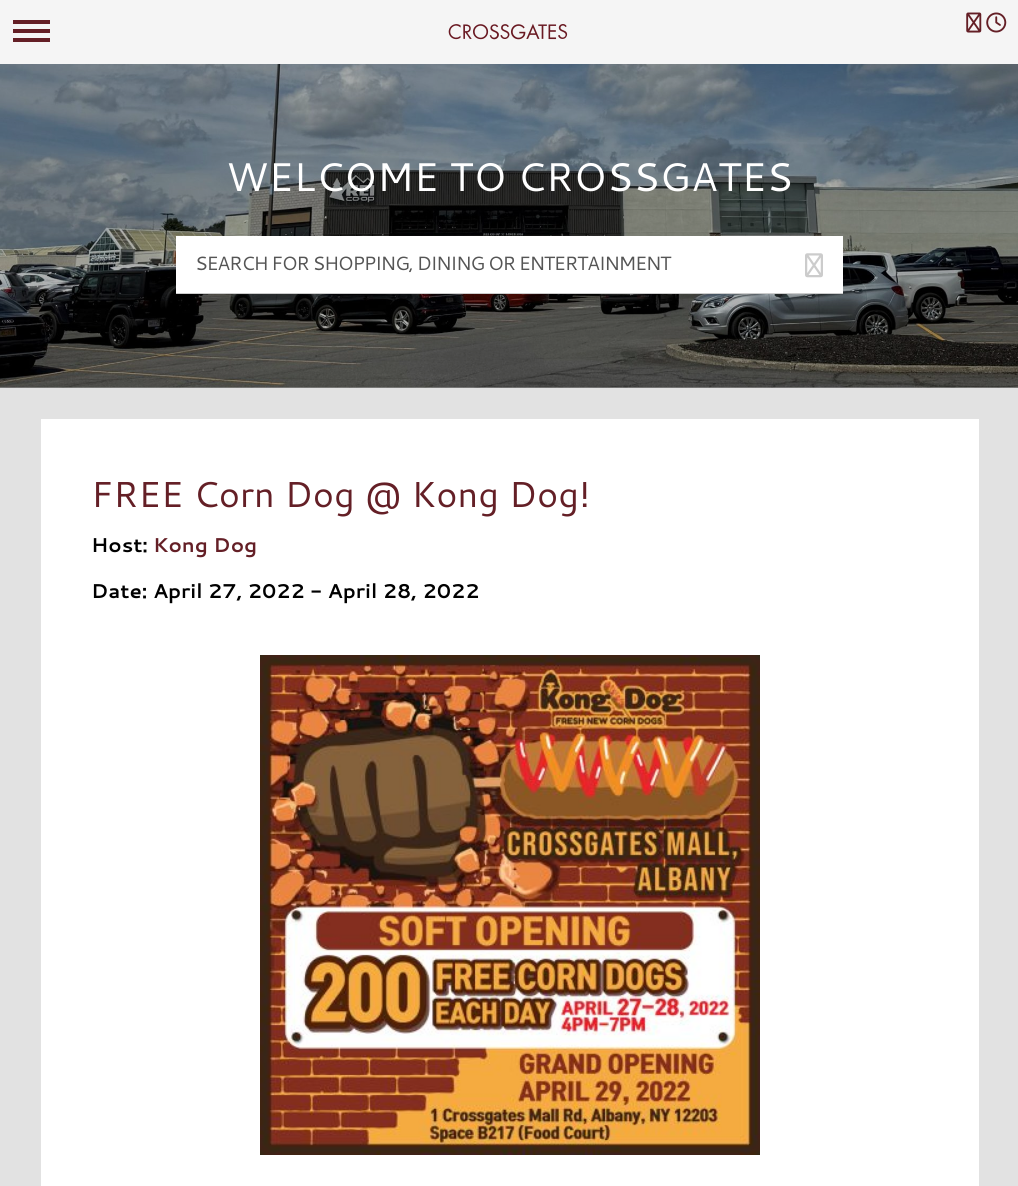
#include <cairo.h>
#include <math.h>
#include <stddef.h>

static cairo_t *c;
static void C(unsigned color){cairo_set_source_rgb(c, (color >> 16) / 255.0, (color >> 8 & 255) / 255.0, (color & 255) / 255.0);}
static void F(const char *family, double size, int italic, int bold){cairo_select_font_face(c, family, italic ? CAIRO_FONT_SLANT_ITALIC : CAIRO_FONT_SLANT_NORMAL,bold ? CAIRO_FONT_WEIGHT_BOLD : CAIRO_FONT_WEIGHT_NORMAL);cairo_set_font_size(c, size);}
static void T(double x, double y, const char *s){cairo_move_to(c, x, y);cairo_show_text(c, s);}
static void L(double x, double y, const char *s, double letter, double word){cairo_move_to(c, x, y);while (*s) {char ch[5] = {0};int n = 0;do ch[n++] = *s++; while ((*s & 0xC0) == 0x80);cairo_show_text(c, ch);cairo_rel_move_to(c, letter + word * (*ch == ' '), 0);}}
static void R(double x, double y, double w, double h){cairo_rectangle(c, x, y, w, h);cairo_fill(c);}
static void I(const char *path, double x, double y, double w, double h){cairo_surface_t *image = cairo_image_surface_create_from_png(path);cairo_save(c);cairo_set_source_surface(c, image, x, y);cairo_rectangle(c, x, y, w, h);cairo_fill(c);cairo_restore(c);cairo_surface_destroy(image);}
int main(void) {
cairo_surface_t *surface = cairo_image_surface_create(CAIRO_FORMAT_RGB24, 1018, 1186);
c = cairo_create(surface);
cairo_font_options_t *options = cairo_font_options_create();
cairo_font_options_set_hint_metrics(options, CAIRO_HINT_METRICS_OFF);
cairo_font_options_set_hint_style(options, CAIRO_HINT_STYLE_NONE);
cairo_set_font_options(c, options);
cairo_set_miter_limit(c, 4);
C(0xe2e2e2);
cairo_paint(c);
C(0x9e9e9e);
R(0,387,1018,1);
C(0xf5f5f5);
R(0,0,1018,64);
C(0x641f26);
R(13,29,37,4);
R(13,20,37,4);
R(13,38,37,4);
I("1.png",448,23,120,17);
I("2.png",966,12,16,21);
I("3.png",986,12,21,21);
I("4.png",0,64,1018,324);
F("Cantarell",40,0,0);
C(0xffffff);
T(226,191,"WELCOME TO CROSSGATES");
R(176,236,667,57);
C(0xcccccc);
R(176,293,667,1);
F("Cantarell",19.2,0,0);
C(0x555555);
L(195,270,"SEARCH FOR SHOPPING, DINING OR ENTERTAINMENT",-1.25,0);
I("5.png",805,253,18,25);
C(0xffffff);
R(41,419,938,767);
F("Cantarell",36,0,0);
C(0x641f26);
T(91,507,"FREE Corn Dog @ Kong Dog!");
F("Cantarell",20,0,1);
C(0x000000);
T(91,552,"Host:");
C(0x641f26);
T(153,552,"Kong Dog");
C(0x000000);
T(91,598,"Date: April 27, 2022 - April 28, 2022");
I("6.png",260,655,500,500);
cairo_surface_write_to_png(surface, "o.png");
cairo_font_options_destroy(options);
cairo_destroy(c);
cairo_surface_destroy(surface);
return 0;
}
